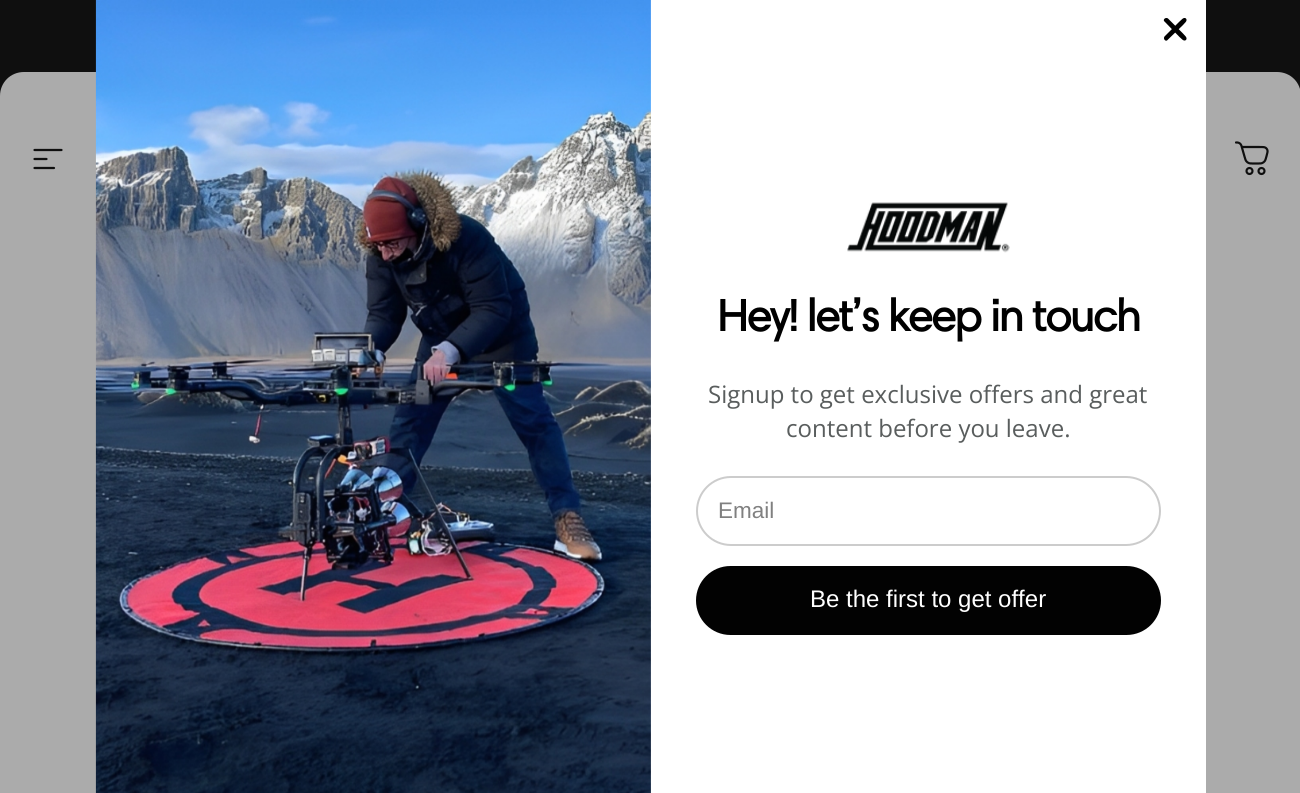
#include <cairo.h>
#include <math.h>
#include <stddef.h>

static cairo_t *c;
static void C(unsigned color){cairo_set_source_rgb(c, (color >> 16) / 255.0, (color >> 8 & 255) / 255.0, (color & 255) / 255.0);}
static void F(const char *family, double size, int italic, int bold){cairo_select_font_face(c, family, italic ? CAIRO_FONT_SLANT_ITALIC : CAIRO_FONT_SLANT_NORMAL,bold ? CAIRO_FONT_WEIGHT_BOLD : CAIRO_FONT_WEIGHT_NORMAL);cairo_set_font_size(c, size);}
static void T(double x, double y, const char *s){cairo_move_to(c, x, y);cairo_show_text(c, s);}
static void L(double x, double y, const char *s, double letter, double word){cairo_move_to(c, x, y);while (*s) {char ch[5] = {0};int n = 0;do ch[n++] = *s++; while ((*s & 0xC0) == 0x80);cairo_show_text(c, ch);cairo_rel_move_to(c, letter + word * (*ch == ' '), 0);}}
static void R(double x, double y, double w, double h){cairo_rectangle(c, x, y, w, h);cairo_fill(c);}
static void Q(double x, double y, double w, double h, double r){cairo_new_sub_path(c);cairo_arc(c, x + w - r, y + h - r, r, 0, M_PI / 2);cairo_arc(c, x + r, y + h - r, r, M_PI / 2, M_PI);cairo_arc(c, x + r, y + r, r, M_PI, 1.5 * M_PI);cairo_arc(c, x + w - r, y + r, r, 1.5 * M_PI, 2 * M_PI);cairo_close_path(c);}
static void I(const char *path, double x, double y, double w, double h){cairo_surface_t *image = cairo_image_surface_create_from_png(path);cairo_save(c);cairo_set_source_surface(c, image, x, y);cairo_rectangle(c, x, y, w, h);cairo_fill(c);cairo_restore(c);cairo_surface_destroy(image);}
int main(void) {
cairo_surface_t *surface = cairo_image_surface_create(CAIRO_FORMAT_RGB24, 1300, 793);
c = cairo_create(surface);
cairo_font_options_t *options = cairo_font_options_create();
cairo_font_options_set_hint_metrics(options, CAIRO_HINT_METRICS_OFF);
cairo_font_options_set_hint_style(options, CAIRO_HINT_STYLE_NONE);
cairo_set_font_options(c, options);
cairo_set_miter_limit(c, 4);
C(0xababab);
cairo_paint(c);
C(0x0f0f0f);
R(0,0,1300,24);
cairo_new_path(c);
cairo_move_to(c,24,0);
cairo_line_to(c,1277,0);
cairo_curve_to(c,1290.5,0,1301,10.5,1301,24);
cairo_line_to(c,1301,96);
cairo_line_to(c,0,96);
cairo_line_to(c,0,24);
cairo_curve_to(c,0,10.5,10.5,0,24,0);
cairo_close_path(c);
cairo_fill(c);
C(0xababab);
cairo_new_path(c);
cairo_move_to(c,24,72);
cairo_line_to(c,1277,72);
cairo_curve_to(c,1290.5,72,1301,82.5,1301,96);
cairo_line_to(c,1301,246);
cairo_line_to(c,0,246);
cairo_line_to(c,0,96);
cairo_curve_to(c,0,82.5,10.5,72,24,72);
cairo_close_path(c);
cairo_fill(c);
cairo_new_path(c);
cairo_move_to(c,34.5,150);
cairo_line_to(c,61.5,150);
cairo_move_to(c,34.5,159);
cairo_line_to(c,46.5,159);
cairo_move_to(c,34.5,168);
cairo_line_to(c,54,168);
C(0x0f0f0f);
cairo_set_line_width(c,2.2);
cairo_set_line_cap(c,CAIRO_LINE_CAP_ROUND);
cairo_stroke(c);
I("1.png",1235,141,34,35);
C(0xffffff);
R(650,0,556,793);
C(0x000000);
cairo_new_path(c);
cairo_move_to(c,1168,18.5);
cairo_line_to(c,1183,33.5);
cairo_curve_to(c,1184,35,1188,37.5,1186,40);
cairo_curve_to(c,1183.5,42,1181,38,1179.5,37);
cairo_line_to(c,1164,21);
cairo_curve_to(c,1163,19,1166,17,1168,18.5);
cairo_close_path(c);
cairo_fill(c);
cairo_new_path(c);
cairo_move_to(c,1164.5,36.5);
cairo_line_to(c,1179.5,21.5);
cairo_curve_to(c,1181,20.5,1183.5,16.5,1186,18.5);
cairo_curve_to(c,1188,21,1184,23.5,1183,25);
cairo_line_to(c,1167,40.5);
cairo_curve_to(c,1165,41.5,1163,38.5,1164.5,36.5);
cairo_close_path(c);
cairo_fill(c);
I("2.png",95,0,556,793);
I("3.png",847,202,163,51);
F("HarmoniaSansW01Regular",45,1,1);
L(717,331,"Hey! let’s keep in touch",-1.35,0);
F("Open Sans",24,0,0);
C(0x595d5d);
T(708,403,"Signup to get exclusive offers and great");
T(786,437,"content before you leave.");
Q(697,477,463,68,34);
C(0xcccccc);
cairo_set_line_width(c,2);
cairo_set_line_cap(c,CAIRO_LINE_CAP_BUTT);
cairo_stroke(c);
F("Liberation Sans",22.5,0,0);
C(0x808080);
T(718,518,"Email");
C(0x020202);
Q(696,566,465,69,34.5);
cairo_fill(c);
F("Liberation Sans",24,0,0);
C(0xffffff);
T(810,607,"Be the first to get offer");
cairo_surface_write_to_png(surface, "o.png");
cairo_font_options_destroy(options);
cairo_destroy(c);
cairo_surface_destroy(surface);
return 0;
}
